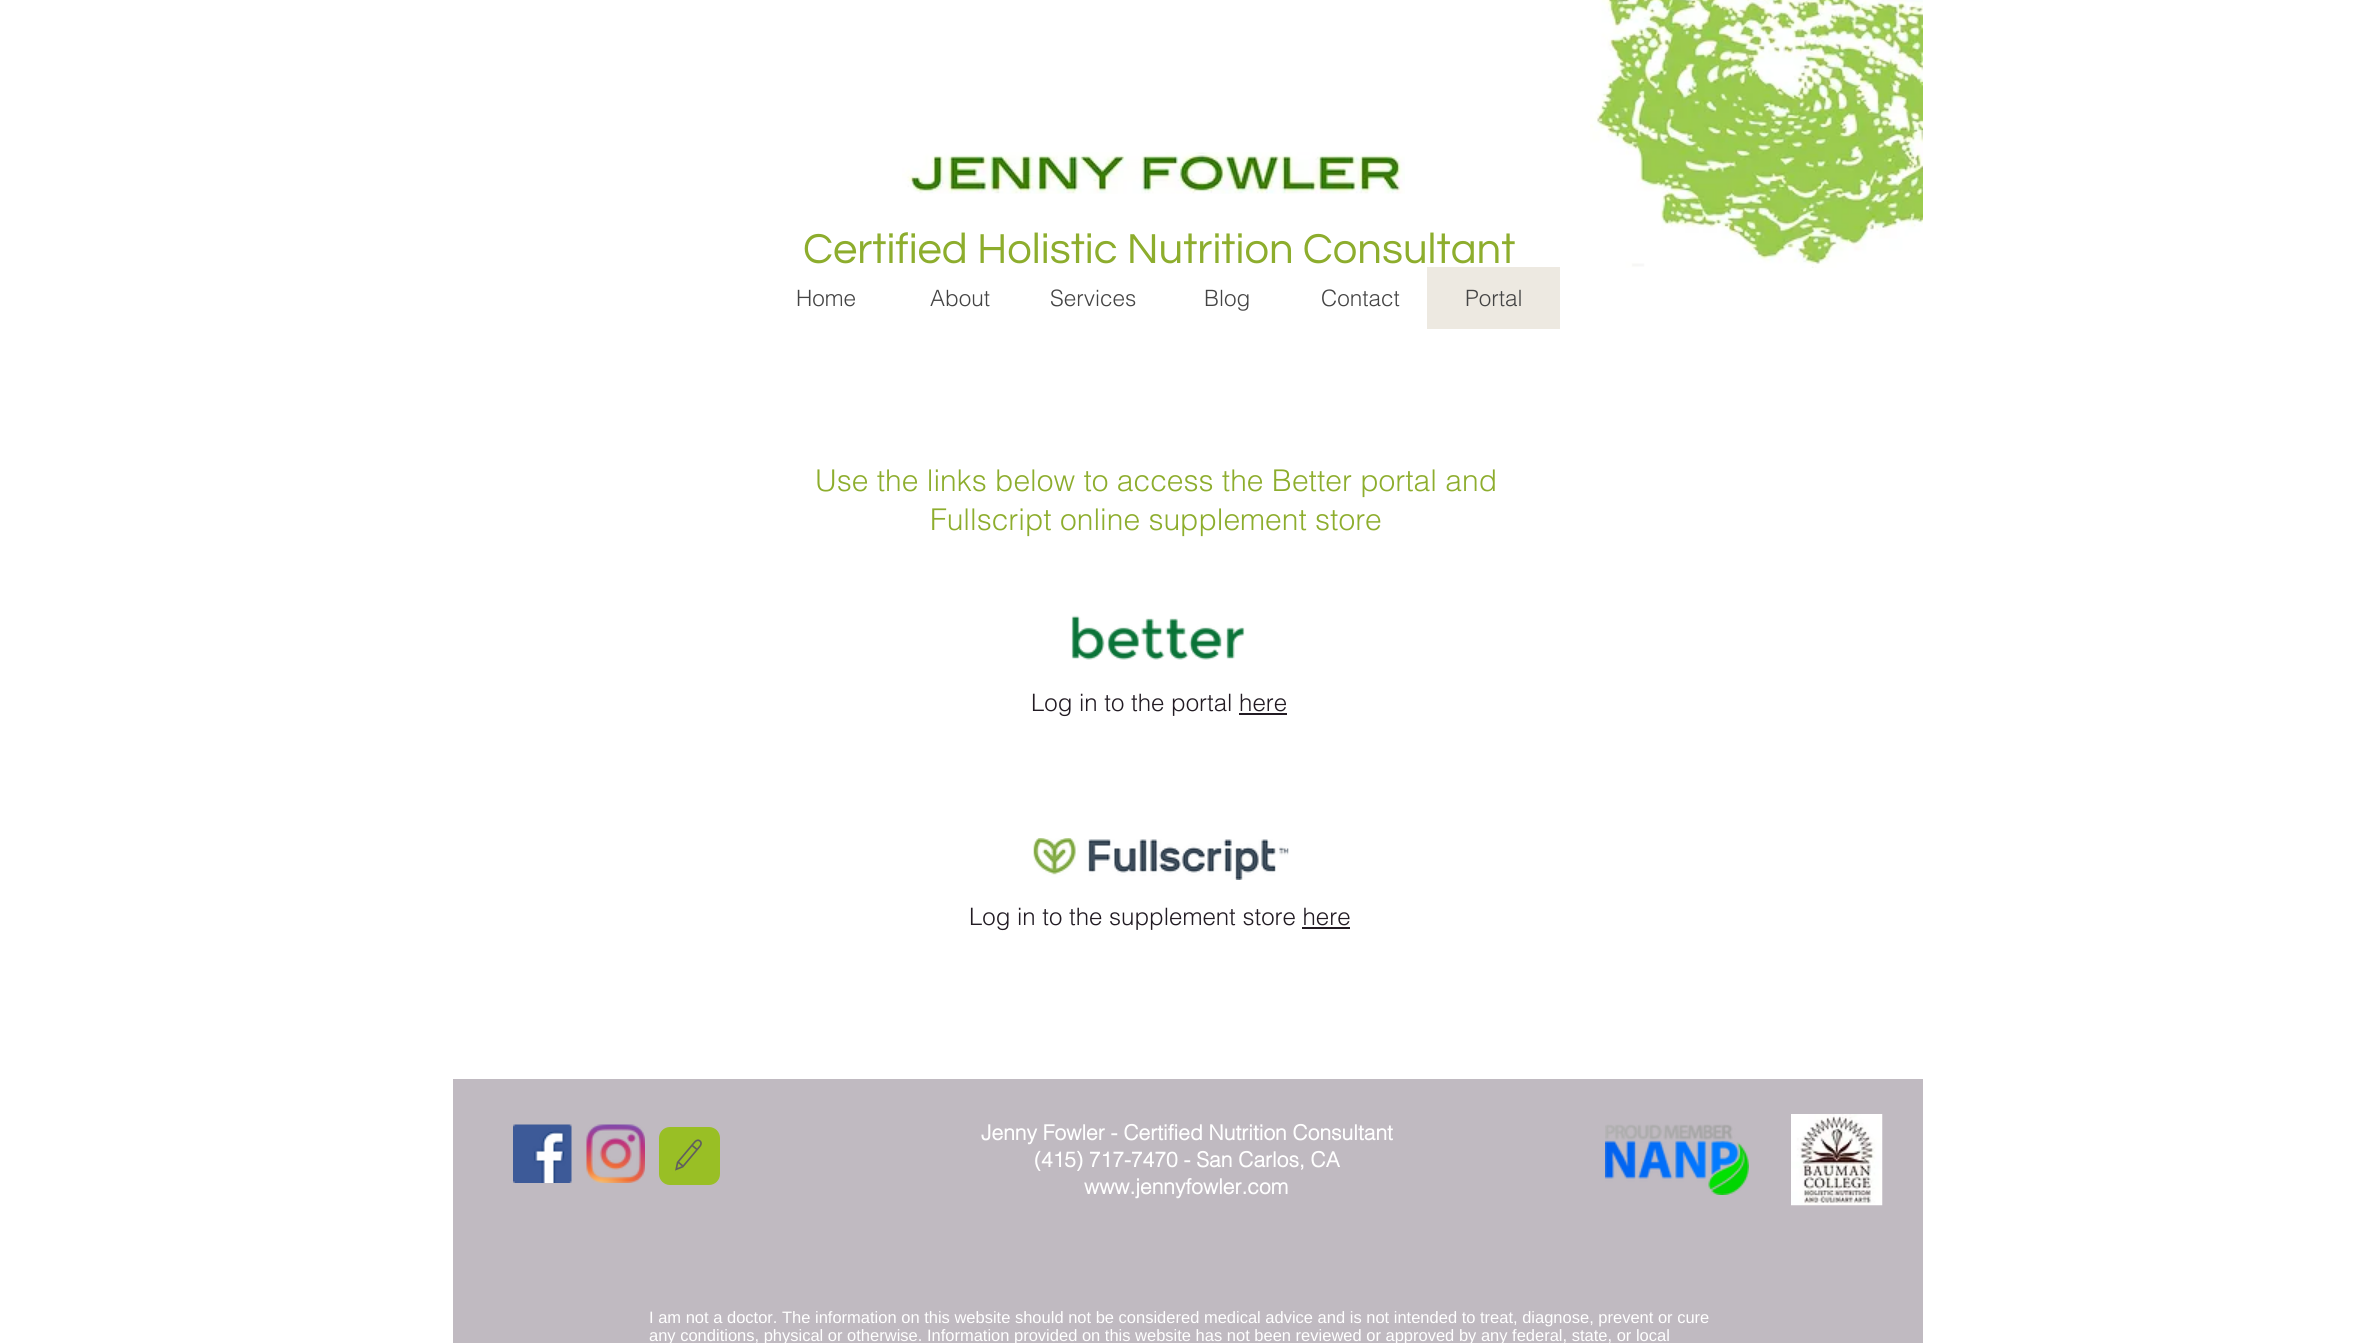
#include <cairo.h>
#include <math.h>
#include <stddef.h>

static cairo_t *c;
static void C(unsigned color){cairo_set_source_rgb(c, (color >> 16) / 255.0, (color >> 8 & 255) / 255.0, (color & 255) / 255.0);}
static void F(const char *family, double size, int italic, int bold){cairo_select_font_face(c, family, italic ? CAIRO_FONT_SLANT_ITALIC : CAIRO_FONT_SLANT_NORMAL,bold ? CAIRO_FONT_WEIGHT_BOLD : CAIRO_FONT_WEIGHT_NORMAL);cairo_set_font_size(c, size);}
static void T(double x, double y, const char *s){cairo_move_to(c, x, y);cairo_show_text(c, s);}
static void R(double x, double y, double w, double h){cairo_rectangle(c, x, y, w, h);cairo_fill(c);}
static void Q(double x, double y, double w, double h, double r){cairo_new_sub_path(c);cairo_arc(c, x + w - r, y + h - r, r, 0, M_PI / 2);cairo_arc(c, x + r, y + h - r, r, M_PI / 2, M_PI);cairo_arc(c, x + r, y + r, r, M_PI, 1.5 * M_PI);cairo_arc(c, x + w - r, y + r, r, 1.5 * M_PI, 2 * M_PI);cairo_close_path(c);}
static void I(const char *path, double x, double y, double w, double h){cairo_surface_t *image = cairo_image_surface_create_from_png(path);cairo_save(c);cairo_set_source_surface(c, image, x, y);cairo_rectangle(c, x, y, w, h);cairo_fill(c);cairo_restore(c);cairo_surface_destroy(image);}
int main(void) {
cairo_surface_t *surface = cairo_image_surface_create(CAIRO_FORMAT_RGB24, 2374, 1343);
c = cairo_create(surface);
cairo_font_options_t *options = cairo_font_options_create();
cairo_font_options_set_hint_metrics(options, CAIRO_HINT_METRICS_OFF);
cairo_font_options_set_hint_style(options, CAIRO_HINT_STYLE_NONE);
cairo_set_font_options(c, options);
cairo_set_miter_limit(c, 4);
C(0xffffff);
cairo_paint(c);
I("1.png",902,152,503,42);
I("2.png",1590,0,333,268);
F("Questrial",43.5,0,0);
C(0x8dad2d);
T(803,263,"Certified Holistic Nutrition Consultant");
F("helvetica Light",22.5,0,0);
C(0x444444);
T(796,306,"Home");
T(930,306,"About");
T(1050,306,"Services");
T(1204,306,"Blog");
T(1321,306,"Contact");
C(0xede9e1);
R(1427,267,133,62);
C(0x444444);
T(1465,306,"Portal");
F("helvetica Light",30,0,0);
C(0x8dad2d);
T(815,491,"Use the links below to access the Better portal and");
T(930,530,"Fullscript online supplement store");
I("3.png",1071,615,174,45);
F("helvetica Light",24,0,0);
C(0x221b23);
T(1031,711,"Log in to the portal here");
R(1239,713,48,2);
I("4.png",1033,838,256,42);
T(969,925,"Log in to the supplement store here");
R(1302,927,48,2);
C(0xc0bac1);
R(453,1079,1470,264);
I("5.png",513,1124,59,59);
I("6.png",586,1124,59,59);
C(0x99bf25);
Q(659,1127,61,58,11);
cairo_fill(c);
I("7.png",675,1139,27,32);
F("helvetica",21,0,1);
C(0xffffff);
T(981,1140,"Jenny Fowler - Certified Nutrition Consultant");
T(1034,1167,"(415) 717-7470 - San Carlos, CA");
T(1084,1194,"www.jennyfowler.com");
I("8.png",1605,1124,144,71);
I("9.png",1791,1114,92,92);
F("Liberation Sans",16.5,0,0);
T(649,1323,"I am not a doctor. The information on this website should not be considered medical advice and is not intended to treat, diagnose, prevent or cure");
T(649,1341,"any conditions, physical or otherwise. Information provided on this website has not been reviewed or approved by any federal, state, or local");
cairo_surface_write_to_png(surface, "o.png");
cairo_font_options_destroy(options);
cairo_destroy(c);
cairo_surface_destroy(surface);
return 0;
}
